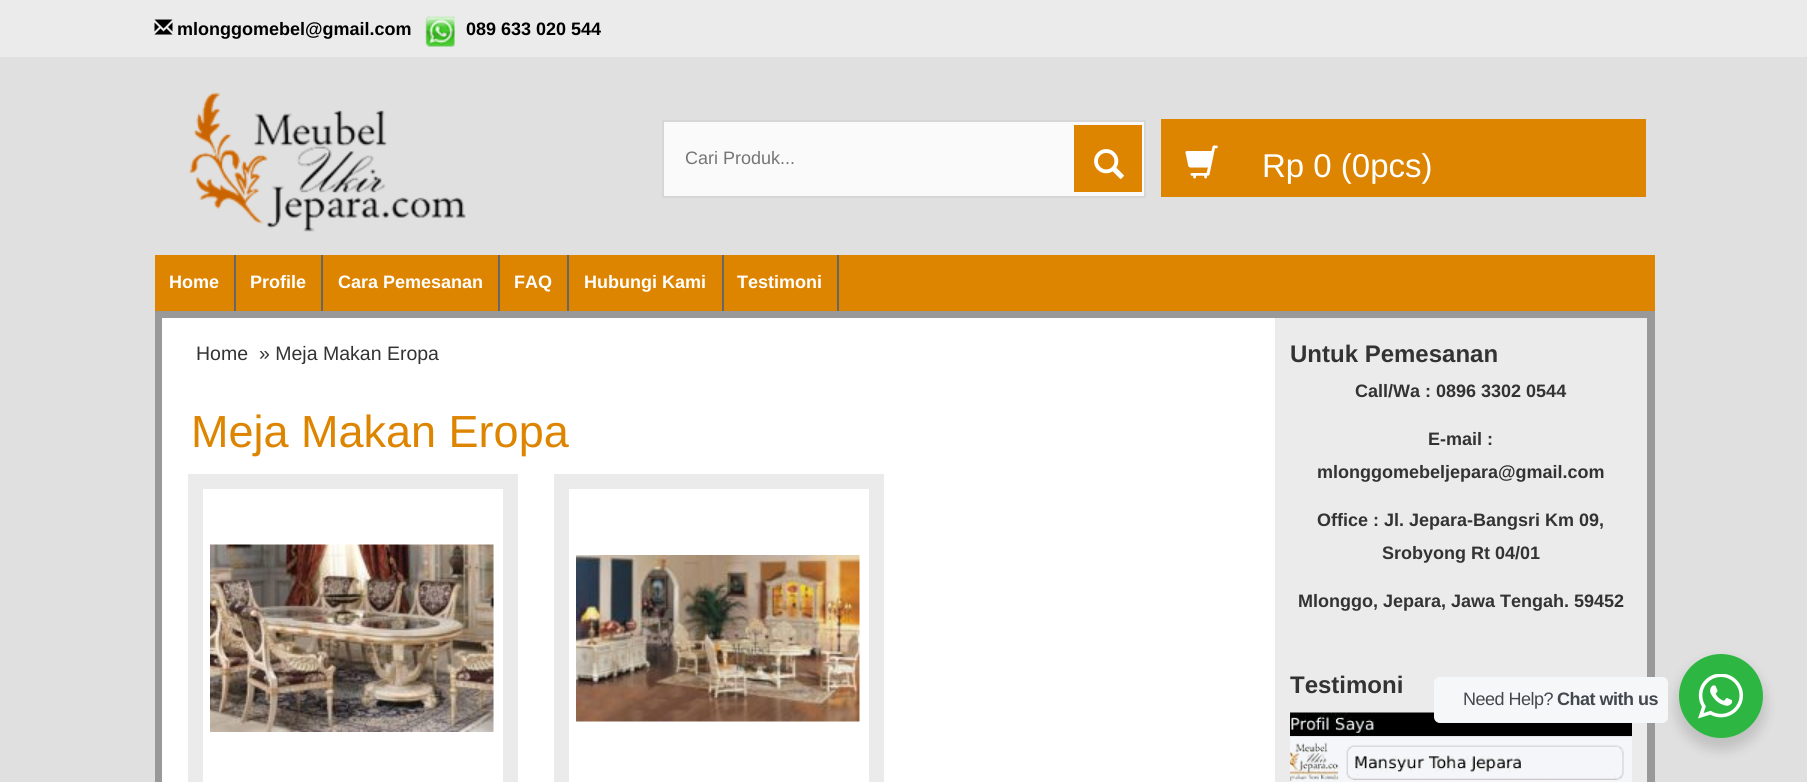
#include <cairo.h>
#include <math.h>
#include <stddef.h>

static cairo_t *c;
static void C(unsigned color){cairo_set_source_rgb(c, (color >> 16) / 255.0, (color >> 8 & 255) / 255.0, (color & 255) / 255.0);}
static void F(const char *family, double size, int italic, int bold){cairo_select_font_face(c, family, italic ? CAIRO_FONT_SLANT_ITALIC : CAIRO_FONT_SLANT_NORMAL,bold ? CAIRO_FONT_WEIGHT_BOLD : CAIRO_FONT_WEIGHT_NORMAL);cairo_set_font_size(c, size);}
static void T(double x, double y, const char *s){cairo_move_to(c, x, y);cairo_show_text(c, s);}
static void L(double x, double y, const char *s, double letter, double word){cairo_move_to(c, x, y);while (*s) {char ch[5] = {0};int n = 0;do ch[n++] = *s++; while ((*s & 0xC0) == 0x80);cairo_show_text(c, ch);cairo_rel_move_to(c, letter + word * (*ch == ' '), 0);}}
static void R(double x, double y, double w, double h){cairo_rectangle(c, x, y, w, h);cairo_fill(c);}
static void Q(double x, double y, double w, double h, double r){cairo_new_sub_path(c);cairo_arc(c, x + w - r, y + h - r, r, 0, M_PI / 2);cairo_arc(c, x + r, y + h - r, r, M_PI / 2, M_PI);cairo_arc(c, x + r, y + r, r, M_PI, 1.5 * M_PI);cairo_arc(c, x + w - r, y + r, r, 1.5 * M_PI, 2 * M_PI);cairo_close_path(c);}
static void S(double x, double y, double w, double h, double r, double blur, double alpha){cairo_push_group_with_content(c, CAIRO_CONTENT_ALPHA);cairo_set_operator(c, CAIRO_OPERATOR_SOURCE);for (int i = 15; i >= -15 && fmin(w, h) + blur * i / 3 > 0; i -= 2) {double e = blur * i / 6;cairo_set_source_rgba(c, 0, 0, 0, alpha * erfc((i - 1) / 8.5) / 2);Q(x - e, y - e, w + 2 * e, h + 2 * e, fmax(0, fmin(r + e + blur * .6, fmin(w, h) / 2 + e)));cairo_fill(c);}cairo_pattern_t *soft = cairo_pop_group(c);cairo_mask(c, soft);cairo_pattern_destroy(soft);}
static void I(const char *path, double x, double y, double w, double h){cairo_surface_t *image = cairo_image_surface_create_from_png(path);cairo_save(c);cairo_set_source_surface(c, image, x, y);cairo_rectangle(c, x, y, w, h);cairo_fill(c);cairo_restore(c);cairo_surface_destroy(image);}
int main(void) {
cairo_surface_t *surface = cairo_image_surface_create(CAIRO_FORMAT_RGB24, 1807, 782);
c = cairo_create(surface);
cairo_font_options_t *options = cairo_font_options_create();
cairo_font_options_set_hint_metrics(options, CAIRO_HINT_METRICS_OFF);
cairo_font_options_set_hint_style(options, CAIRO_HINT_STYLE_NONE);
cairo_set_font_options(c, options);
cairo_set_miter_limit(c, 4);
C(0xe0e0e0);
cairo_paint(c);
C(0xebebeb);
R(0,0,1807,57);
I("1.png",154,19,19,16);
F("Liberation Sans",18,0,1);
C(0x000000);
T(177,35,"mlonggomebel@gmail.com");
I("2.png",425,16,30,31);
T(466,35,"089 633 020 544");
I("3.png",189,92,277,140);
C(0xfafafa);
cairo_rectangle(c,663,121,482,76);
cairo_fill_preserve(c);
C(0xd6d6d6);
cairo_stroke(c);
F("Liberation Sans",18,0,0);
C(0x757575);
T(685,164,"Cari Produk...");
C(0xdd8500);
R(1074,125,68,67);
I("4.png",1094,149,30,30);
R(1161,119,485,78);
I("5.png",1185,145,33,34);
F("Liberation Sans",33,0,0);
C(0xffffff);
T(1262,177,"Rp 0 (0pcs)");
C(0xdd8500);
R(155,255,1500,56);
C(0x666666);
R(234,255,2,56);
F("Liberation Sans",18,0,1);
C(0xffffff);
T(169,288,"Home");
C(0x666666);
R(321,255,2,56);
C(0xffffff);
T(250,288,"Profile");
C(0x666666);
R(498,255,2,56);
C(0xffffff);
T(338,288,"Cara Pemesanan");
C(0x666666);
R(567,255,2,56);
C(0xffffff);
T(514,288,"FAQ");
C(0x666666);
R(722,255,2,56);
C(0xffffff);
T(584,288,"Hubungi Kami");
C(0x666666);
R(837,255,2,56);
C(0xffffff);
T(737,288,"Testimoni");
cairo_rectangle(c,159,315,1492,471);
C(0x999999);
cairo_set_line_width(c,8);
cairo_stroke(c);
C(0xffffff);
R(162,318,1113,464);
F("Liberation Sans",19.5,0,0);
C(0x333333);
T(196,360,"Home");
T(259,360,"» Meja Makan Eropa");
F("Liberation Sans",45,0,0);
C(0xdd8500);
T(191,447,"Meja Makan Eropa");
C(0xebebeb);
R(188,474,330,308);
C(0xffffff);
R(203,489,300,293);
I("6.png",210,544,284,188);
C(0xebebeb);
R(554,474,330,308);
C(0xffffff);
R(569,489,300,293);
I("7.png",576,555,284,167);
C(0xebebeb);
R(1275,318,372,464);
F("Liberation Sans",24,0,1);
C(0x333333);
T(1290,362,"Untuk Pemesanan");
F("Liberation Sans",18,0,1);
T(1355,397,"Call/Wa : 0896 3302 0544");
T(1428,445,"E-mail :");
T(1317,478,"mlonggomebeljepara@gmail.com");
T(1317,526,"Office : Jl. Jepara-Bangsri Km 09,");
T(1382,559,"Srobyong Rt 04/01");
T(1298,607,"Mlonggo, Jepara, Jawa Tengah. 59452");
F("Liberation Sans",24,0,1);
T(1290,693,"Testimoni");
I("8.png",1290,712,342,70);
C(0x000000);
S(1676,660,90,90,45,6,.14);
C(0xf5f7f9);
Q(1434,677,234,46,6);
cairo_fill(c);
F("Liberation Sans",18,0,0);
C(0x43474e);
L(1463,705,"Need Help?",-.5,0);
F("Liberation Sans",18,0,1);
L(1557,705,"Chat with us",-.5,0);
C(0x2db742);
cairo_new_path(c);
cairo_arc(c,1721,696,42,0,2 * M_PI);
cairo_fill(c);
I("9.png",1698,674,45,45);
cairo_surface_write_to_png(surface, "o.png");
cairo_font_options_destroy(options);
cairo_destroy(c);
cairo_surface_destroy(surface);
return 0;
}
